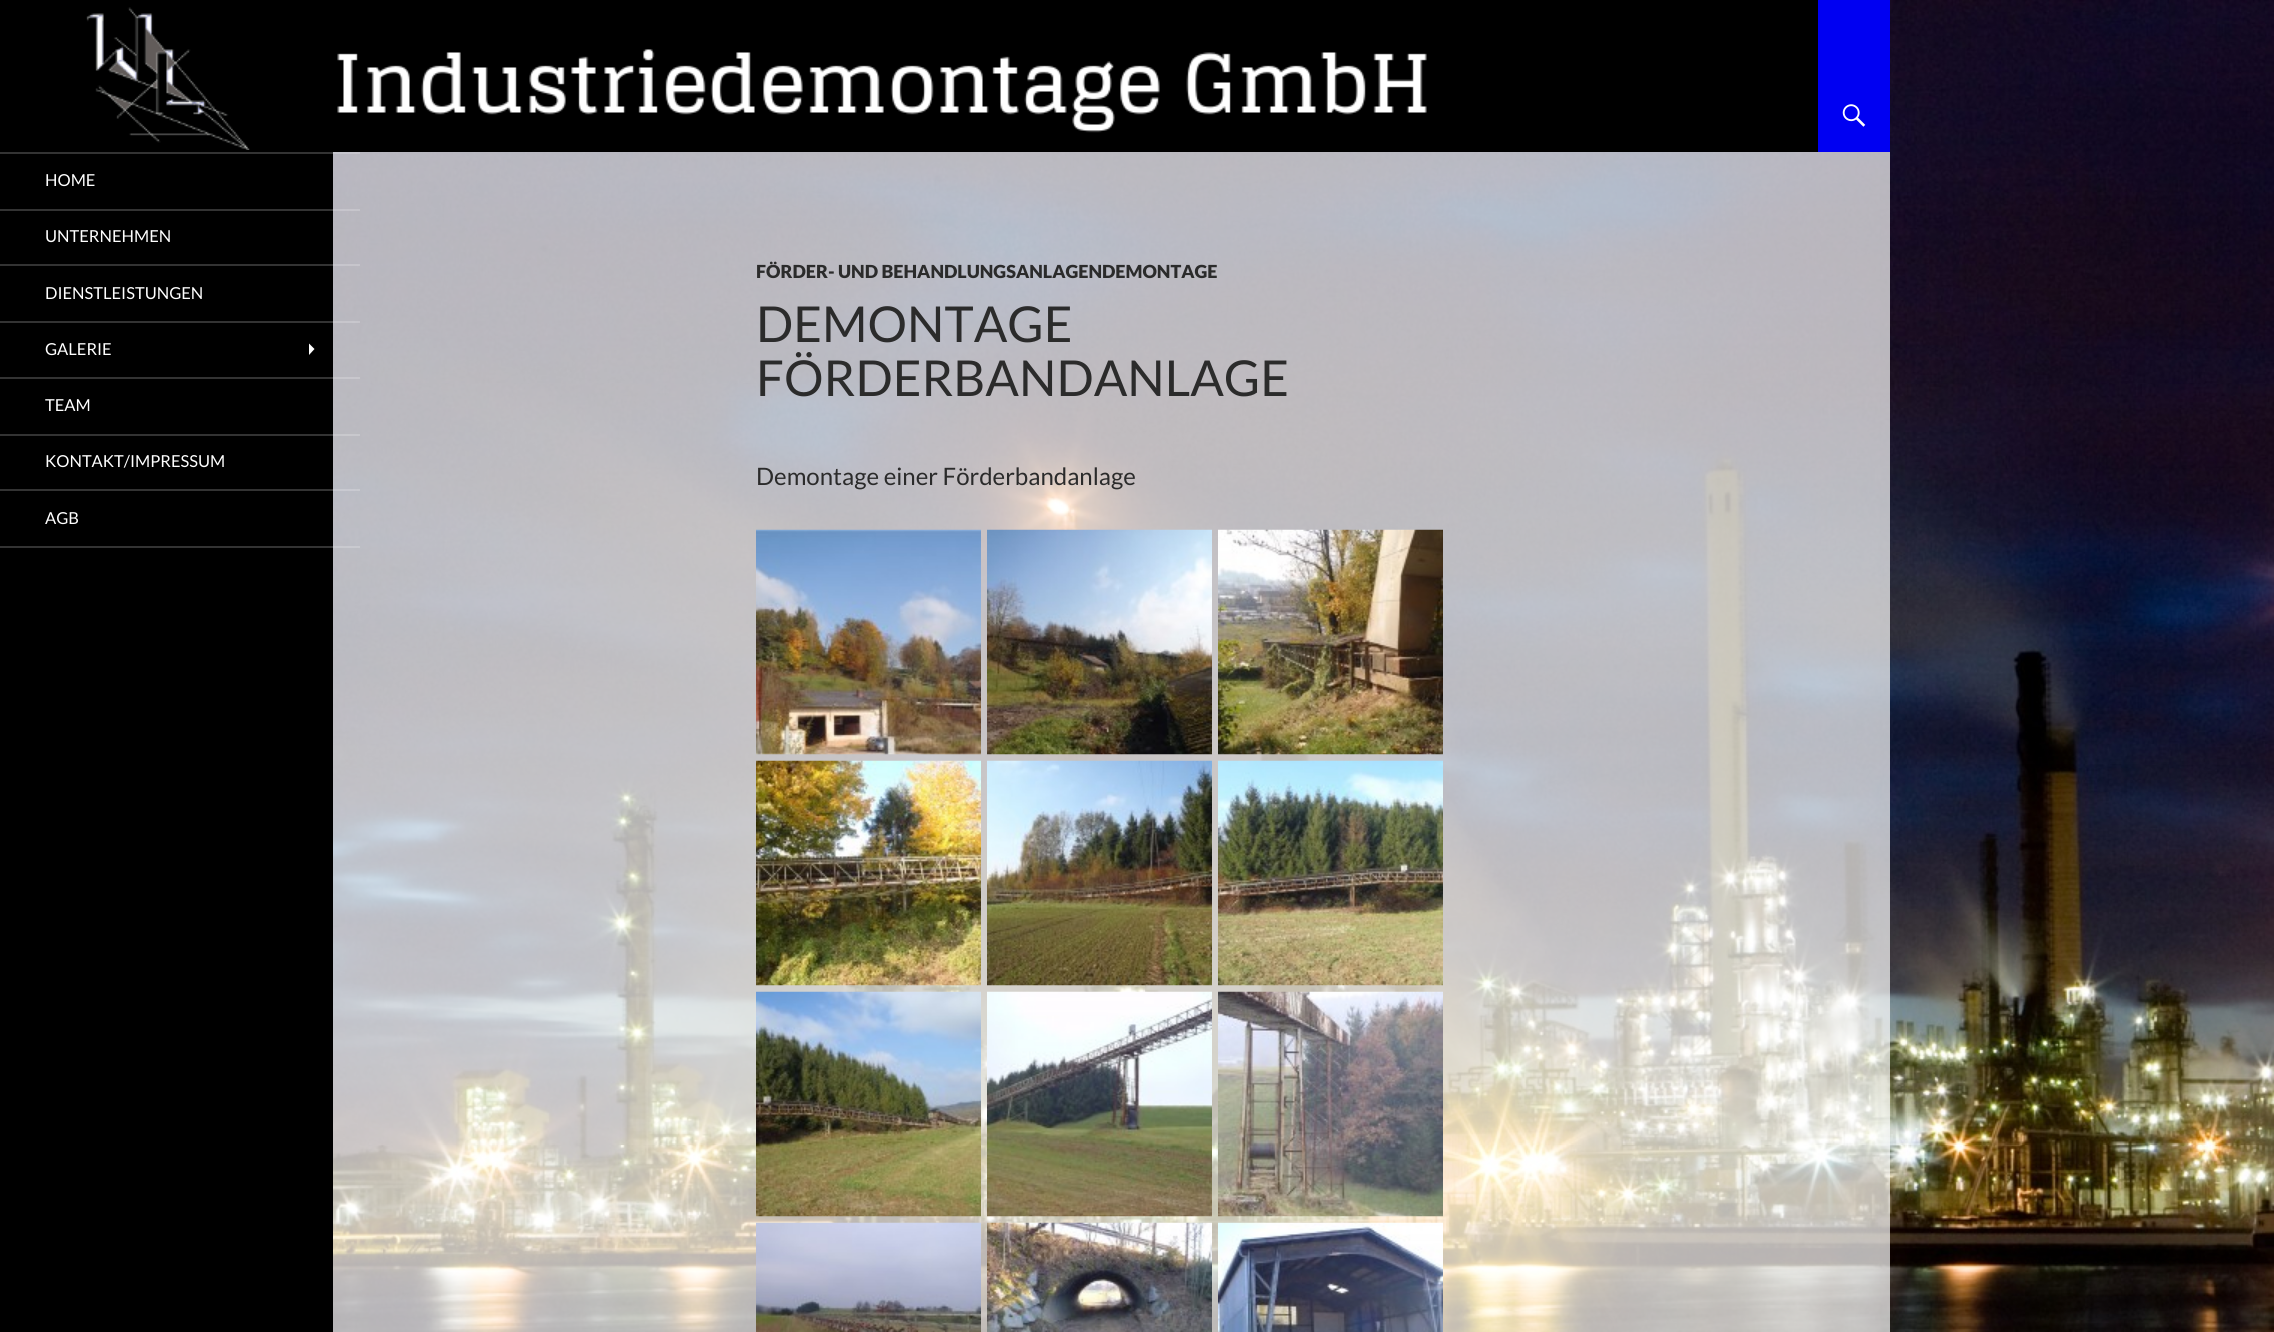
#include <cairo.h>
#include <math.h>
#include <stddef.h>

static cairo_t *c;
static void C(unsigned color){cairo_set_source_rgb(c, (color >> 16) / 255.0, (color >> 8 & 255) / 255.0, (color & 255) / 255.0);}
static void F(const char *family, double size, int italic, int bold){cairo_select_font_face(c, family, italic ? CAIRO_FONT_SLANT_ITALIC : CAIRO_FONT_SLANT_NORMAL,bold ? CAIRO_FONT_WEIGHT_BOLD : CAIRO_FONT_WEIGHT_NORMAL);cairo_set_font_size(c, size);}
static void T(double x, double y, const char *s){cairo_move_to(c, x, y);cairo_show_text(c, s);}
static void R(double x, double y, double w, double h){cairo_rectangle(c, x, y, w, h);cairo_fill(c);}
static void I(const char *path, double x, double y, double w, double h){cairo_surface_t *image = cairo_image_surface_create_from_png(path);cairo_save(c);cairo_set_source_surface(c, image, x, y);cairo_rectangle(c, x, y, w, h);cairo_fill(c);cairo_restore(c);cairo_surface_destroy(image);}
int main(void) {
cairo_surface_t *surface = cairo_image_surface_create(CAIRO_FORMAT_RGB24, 2274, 1332);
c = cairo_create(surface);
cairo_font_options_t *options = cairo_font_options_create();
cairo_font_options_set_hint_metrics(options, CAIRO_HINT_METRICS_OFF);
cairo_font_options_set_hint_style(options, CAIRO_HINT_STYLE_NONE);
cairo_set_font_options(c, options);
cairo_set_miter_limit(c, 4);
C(0xffffff);
cairo_paint(c);
I("1.png",333,0,1941,1332);
cairo_set_source_rgba(c,1,1,1,0.7);
R(333,152,1557,1180);
C(0x000000);
R(0,0,1818,152);
I("2.png",86,7,1341,143);
C(0x0000f2);
R(1818,0,72,152);
I("3.png",1842,104,24,23);
C(0x000000);
R(0,152,333,1180);
cairo_set_source_rgba(c,1,1,1,0.2);
R(0,546,360,2);
R(0,152,360,2);
F("Lato",16.5,0,0);
C(0xffffff);
T(45,186,"HOME");
cairo_set_source_rgba(c,1,1,1,0.2);
R(0,209,360,2);
C(0xffffff);
T(45,242,"UNTERNEHMEN");
cairo_set_source_rgba(c,1,1,1,0.2);
R(0,264,360,2);
C(0xffffff);
T(45,299,"DIENSTLEISTUNGEN");
cairo_set_source_rgba(c,1,1,1,0.2);
R(0,321,360,2);
C(0xffffff);
T(45,355,"GALERIE");
cairo_new_path(c);
cairo_move_to(c,309,355);
cairo_line_to(c,314.5,349);
cairo_line_to(c,309,343.5);
cairo_close_path(c);
cairo_fill(c);
cairo_set_source_rgba(c,1,1,1,0.2);
R(0,377,360,2);
C(0xffffff);
T(45,411,"TEAM");
cairo_set_source_rgba(c,1,1,1,0.2);
R(0,434,360,2);
C(0xffffff);
T(45,467,"KONTAKT/IMPRESSUM");
cairo_set_source_rgba(c,1,1,1,0.2);
R(0,489,360,2);
C(0xffffff);
T(45,524,"AGB");
F("Lato Black",18,0,0);
C(0x2b2b2b);
T(756,278,"FÖRDER- UND BEHANDLUNGSANLAGENDEMONTAGE");
F("Lato",49.5,0,0);
T(756,342,"DEMONTAGE");
T(756,396,"FÖRDERBANDANLAGE");
F("Lato",24,0,0);
T(756,485,"Demontage einer Förderbandanlage");
I("4.png",756,529,225,226);
I("5.png",987,529,225,226);
I("6.png",1218,529,225,226);
I("7.png",756,760,225,226);
I("8.png",987,760,225,226);
I("9.png",1218,760,225,226);
I("10.png",756,991,225,226);
I("11.png",987,991,225,226);
I("12.png",1218,991,225,226);
I("13.png",756,1222,225,110);
I("14.png",987,1222,225,110);
I("15.png",1218,1222,225,110);
cairo_surface_write_to_png(surface, "o.png");
cairo_font_options_destroy(options);
cairo_destroy(c);
cairo_surface_destroy(surface);
return 0;
}
